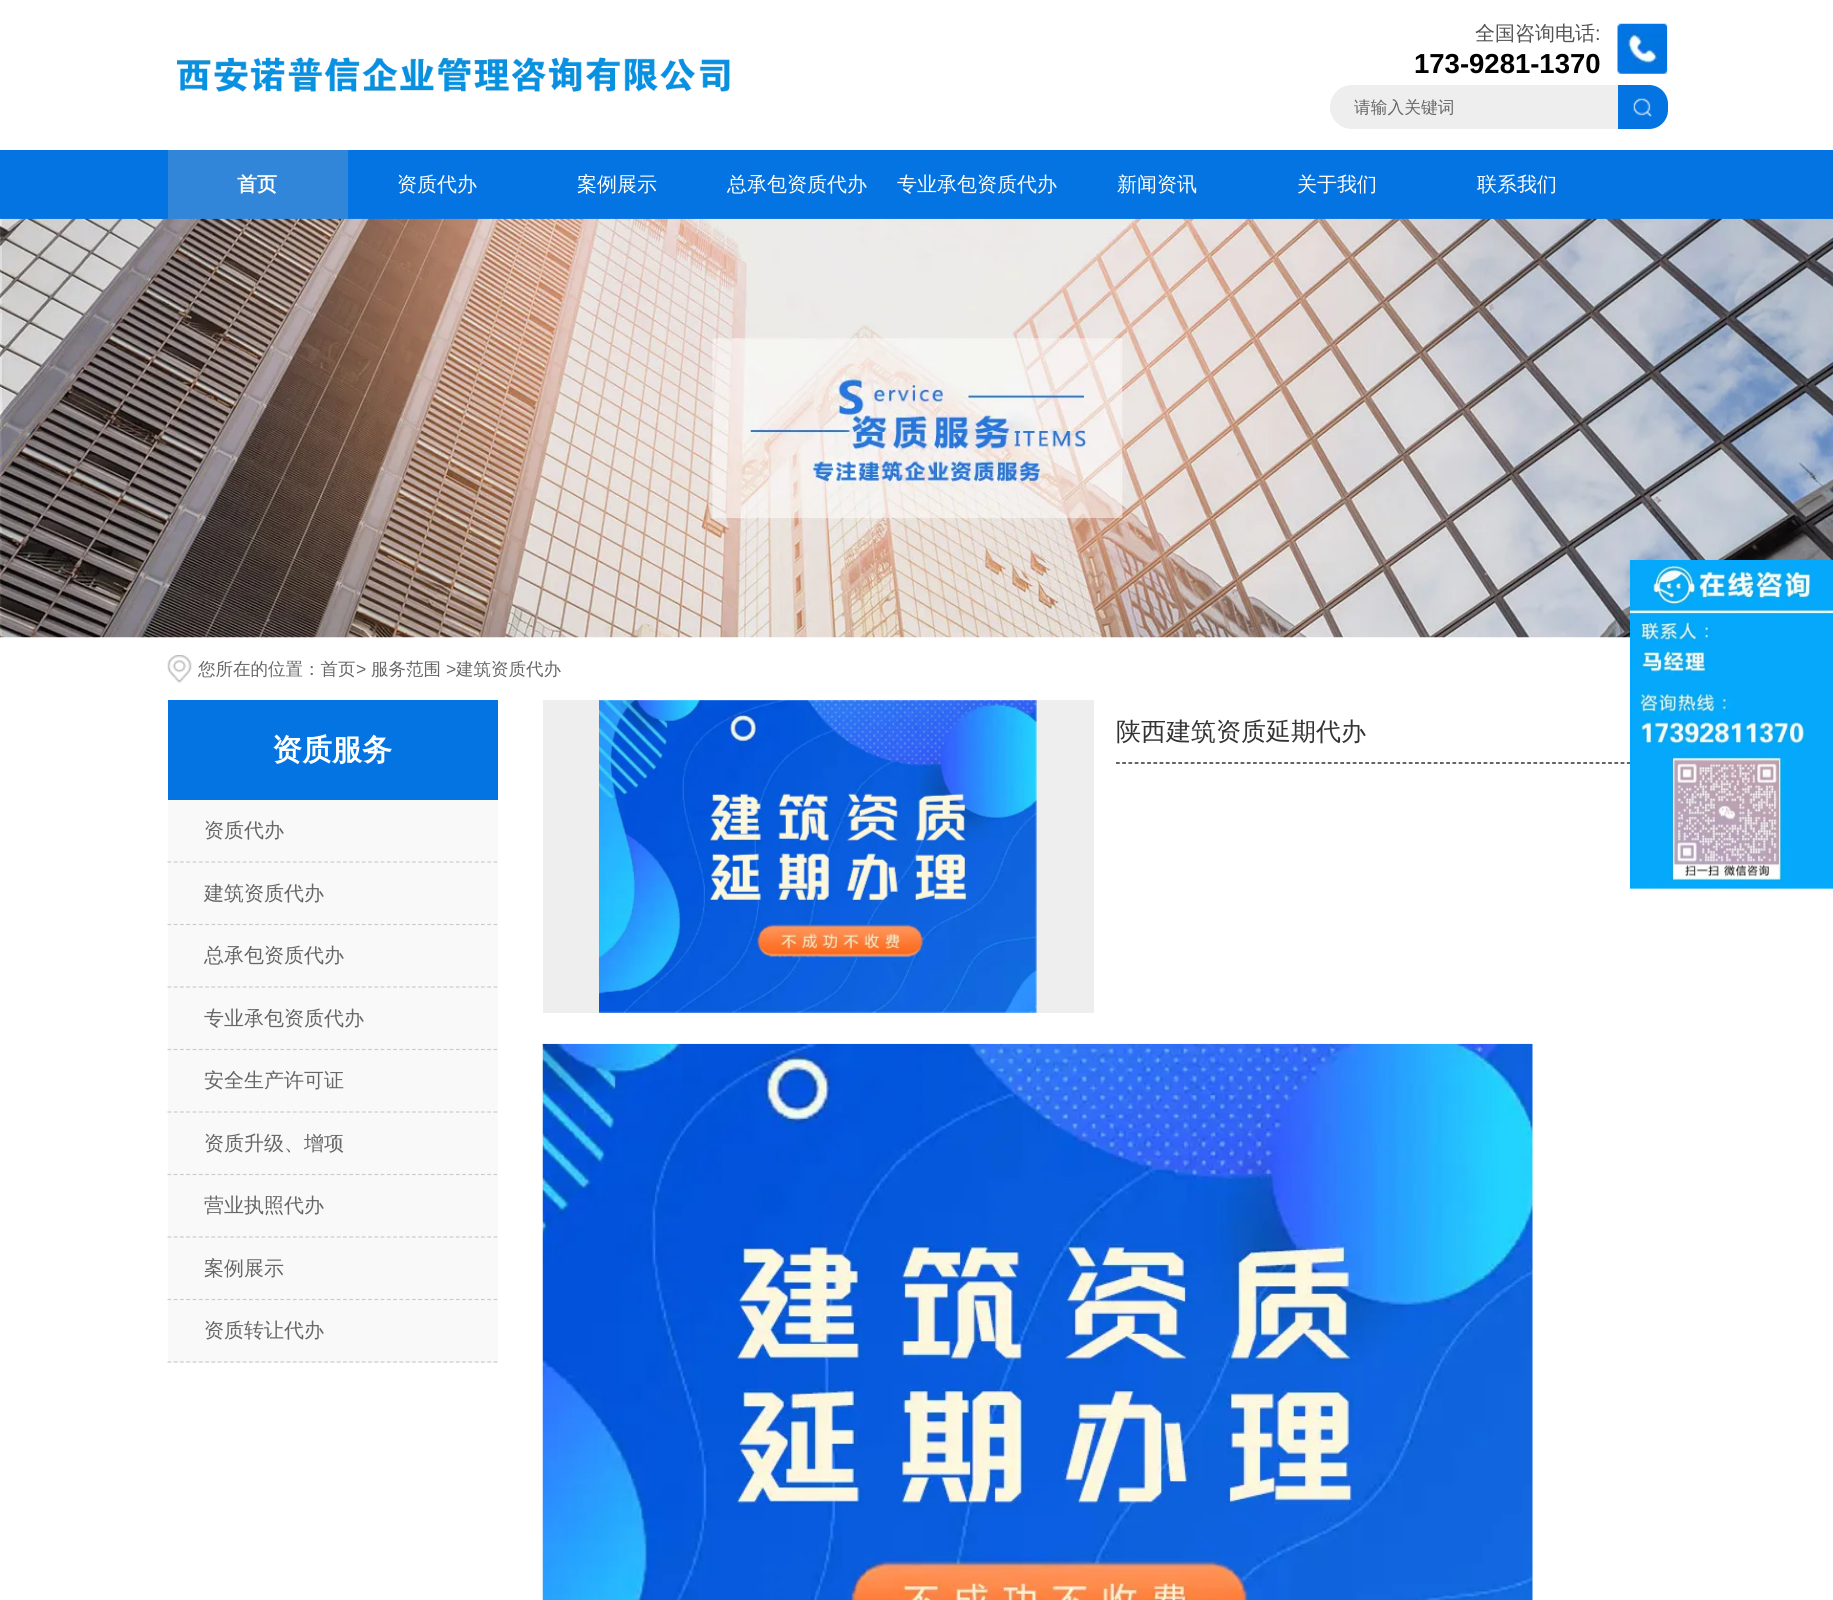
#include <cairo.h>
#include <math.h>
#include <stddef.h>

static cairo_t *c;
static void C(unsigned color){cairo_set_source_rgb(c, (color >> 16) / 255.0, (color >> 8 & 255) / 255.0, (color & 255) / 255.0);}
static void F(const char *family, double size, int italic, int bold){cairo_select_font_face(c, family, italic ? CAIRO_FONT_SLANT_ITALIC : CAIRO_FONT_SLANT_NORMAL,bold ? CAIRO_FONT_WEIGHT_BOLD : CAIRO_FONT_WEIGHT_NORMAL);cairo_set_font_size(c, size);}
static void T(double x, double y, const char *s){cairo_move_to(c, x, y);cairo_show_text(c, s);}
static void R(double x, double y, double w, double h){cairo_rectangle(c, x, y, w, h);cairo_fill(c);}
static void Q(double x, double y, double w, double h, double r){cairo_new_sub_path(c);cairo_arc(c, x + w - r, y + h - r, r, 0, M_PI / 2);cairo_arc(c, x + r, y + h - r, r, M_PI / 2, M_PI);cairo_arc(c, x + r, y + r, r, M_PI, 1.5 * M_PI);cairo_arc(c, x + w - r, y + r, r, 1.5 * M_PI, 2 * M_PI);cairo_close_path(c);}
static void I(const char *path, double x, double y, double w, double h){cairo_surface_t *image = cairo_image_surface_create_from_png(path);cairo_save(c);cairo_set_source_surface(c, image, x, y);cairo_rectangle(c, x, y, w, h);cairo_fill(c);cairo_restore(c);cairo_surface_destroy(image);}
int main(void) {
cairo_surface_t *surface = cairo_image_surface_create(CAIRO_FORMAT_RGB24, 1833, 1600);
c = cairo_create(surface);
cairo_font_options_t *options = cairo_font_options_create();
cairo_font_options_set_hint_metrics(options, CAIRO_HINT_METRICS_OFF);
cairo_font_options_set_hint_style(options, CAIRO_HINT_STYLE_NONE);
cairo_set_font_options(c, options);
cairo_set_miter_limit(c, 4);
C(0xffffff);
cairo_paint(c);
I("1.png",177,57,553,35);
F("WenQuanYi Zen Hei Medium",20,0,0);
C(0x525252);
T(1475,40,"全国咨询电话");
F("Liberation Sans",20,0,0);
T(1595,40,":");
F("Liberation Sans",27.5,0,1);
C(0x000000);
T(1414,73,"173-9281-1370");
I("2.png",1617,23,51,51);
C(0xeeeeee);
Q(1330,85,338,44,22);
cairo_fill(c);
F("WenQuanYi Zen Hei Medium",16.75,0,0);
C(0x666666);
T(1354,113,"请输入关键词");
C(0x0374e2);
cairo_new_path(c);
cairo_move_to(c,1618,85);
cairo_line_to(c,1649,85);
cairo_curve_to(c,1659.5,85,1668,93.5,1668,104);
cairo_line_to(c,1668,110);
cairo_curve_to(c,1668,120.5,1659.5,129,1649,129);
cairo_line_to(c,1618,129);
cairo_close_path(c);
cairo_fill(c);
I("3.png",1633,98,19,19);
R(0,150,1833,69);
C(0x3186d9);
R(168,150,180,69);
F("WenQuanYi Zen Hei",20,0,1);
C(0xffffff);
T(237,191,"首页");
F("WenQuanYi Zen Hei Medium",20,0,0);
T(397,191,"资质代办");
T(577,191,"案例展示");
T(727,191,"总承包资质代办");
T(897,191,"专业承包资质代办");
T(1117,191,"新闻资讯");
T(1297,191,"关于我们");
T(1477,191,"联系我们");
I("4.png",0,218,1833,420);
I("5.png",167,655,25,28);
F("WenQuanYi Zen Hei Medium",17.5,0,0);
C(0x666666);
T(198,675,"您所在的位置：首页");
F("Liberation Sans",17.5,0,0);
T(356,675,">");
F("WenQuanYi Zen Hei Medium",17.5,0,0);
T(371,675,"服务范围");
F("Liberation Sans",17.5,0,0);
T(446,675,">");
F("WenQuanYi Zen Hei Medium",17.5,0,0);
T(456,675,"建筑资质代办");
C(0xeeeeee);
R(543,700,551,313);
I("6.png",599,700,438,313);
cairo_new_path(c);
cairo_move_to(c,1116,763);
cairo_line_to(c,1667.5,763);
C(0x000000);
cairo_set_line_width(c,1.2);
cairo_set_dash(c,(double[]){3.75,2.48},2,0);
cairo_stroke(c);
F("WenQuanYi Zen Hei Medium",25,0,0);
C(0x333333);
T(1116,740,"陕西建筑资质延期代办");
I("7.png",542,1043,991,557);
C(0xf9f9f9);
R(168,800,330,563);
C(0x0374e2);
R(168,700,330,100);
F("WenQuanYi Zen Hei",30,0,1);
C(0xffffff);
T(272,760,"资质服务");
cairo_new_path(c);
cairo_move_to(c,167.5,862);
cairo_line_to(c,497.5,862);
C(0xcccccc);
cairo_set_dash(c,(double[]){3.75,2.52},2,0);
cairo_stroke(c);
F("WenQuanYi Zen Hei Medium",20,0,0);
C(0x666666);
T(204,837,"资质代办");
cairo_new_path(c);
cairo_move_to(c,167.5,924.5);
cairo_line_to(c,497.5,924.5);
C(0xcccccc);
cairo_stroke(c);
C(0x666666);
T(204,900,"建筑资质代办");
cairo_new_path(c);
cairo_move_to(c,167.5,987);
cairo_line_to(c,497.5,987);
C(0xcccccc);
cairo_stroke(c);
C(0x666666);
T(204,962,"总承包资质代办");
cairo_new_path(c);
cairo_move_to(c,167.5,1049.5);
cairo_line_to(c,497.5,1049.5);
C(0xcccccc);
cairo_stroke(c);
C(0x666666);
T(204,1025,"专业承包资质代办");
cairo_new_path(c);
cairo_move_to(c,167.5,1112);
cairo_line_to(c,497.5,1112);
C(0xcccccc);
cairo_stroke(c);
C(0x666666);
T(204,1087,"安全生产许可证");
cairo_new_path(c);
cairo_move_to(c,167.5,1174.5);
cairo_line_to(c,497.5,1174.5);
C(0xcccccc);
cairo_stroke(c);
C(0x666666);
T(204,1150,"资质升级、增项");
cairo_new_path(c);
cairo_move_to(c,167.5,1237);
cairo_line_to(c,497.5,1237);
C(0xcccccc);
cairo_stroke(c);
C(0x666666);
T(204,1212,"营业执照代办");
cairo_new_path(c);
cairo_move_to(c,167.5,1299.5);
cairo_line_to(c,497.5,1299.5);
C(0xcccccc);
cairo_stroke(c);
C(0x666666);
T(204,1275,"案例展示");
cairo_new_path(c);
cairo_move_to(c,167.5,1362);
cairo_line_to(c,497.5,1362);
C(0xcccccc);
cairo_stroke(c);
C(0x666666);
T(204,1337,"资质转让代办");
I("8.png",1630,560,203,329);
cairo_surface_write_to_png(surface, "o.png");
cairo_font_options_destroy(options);
cairo_destroy(c);
cairo_surface_destroy(surface);
return 0;
}
